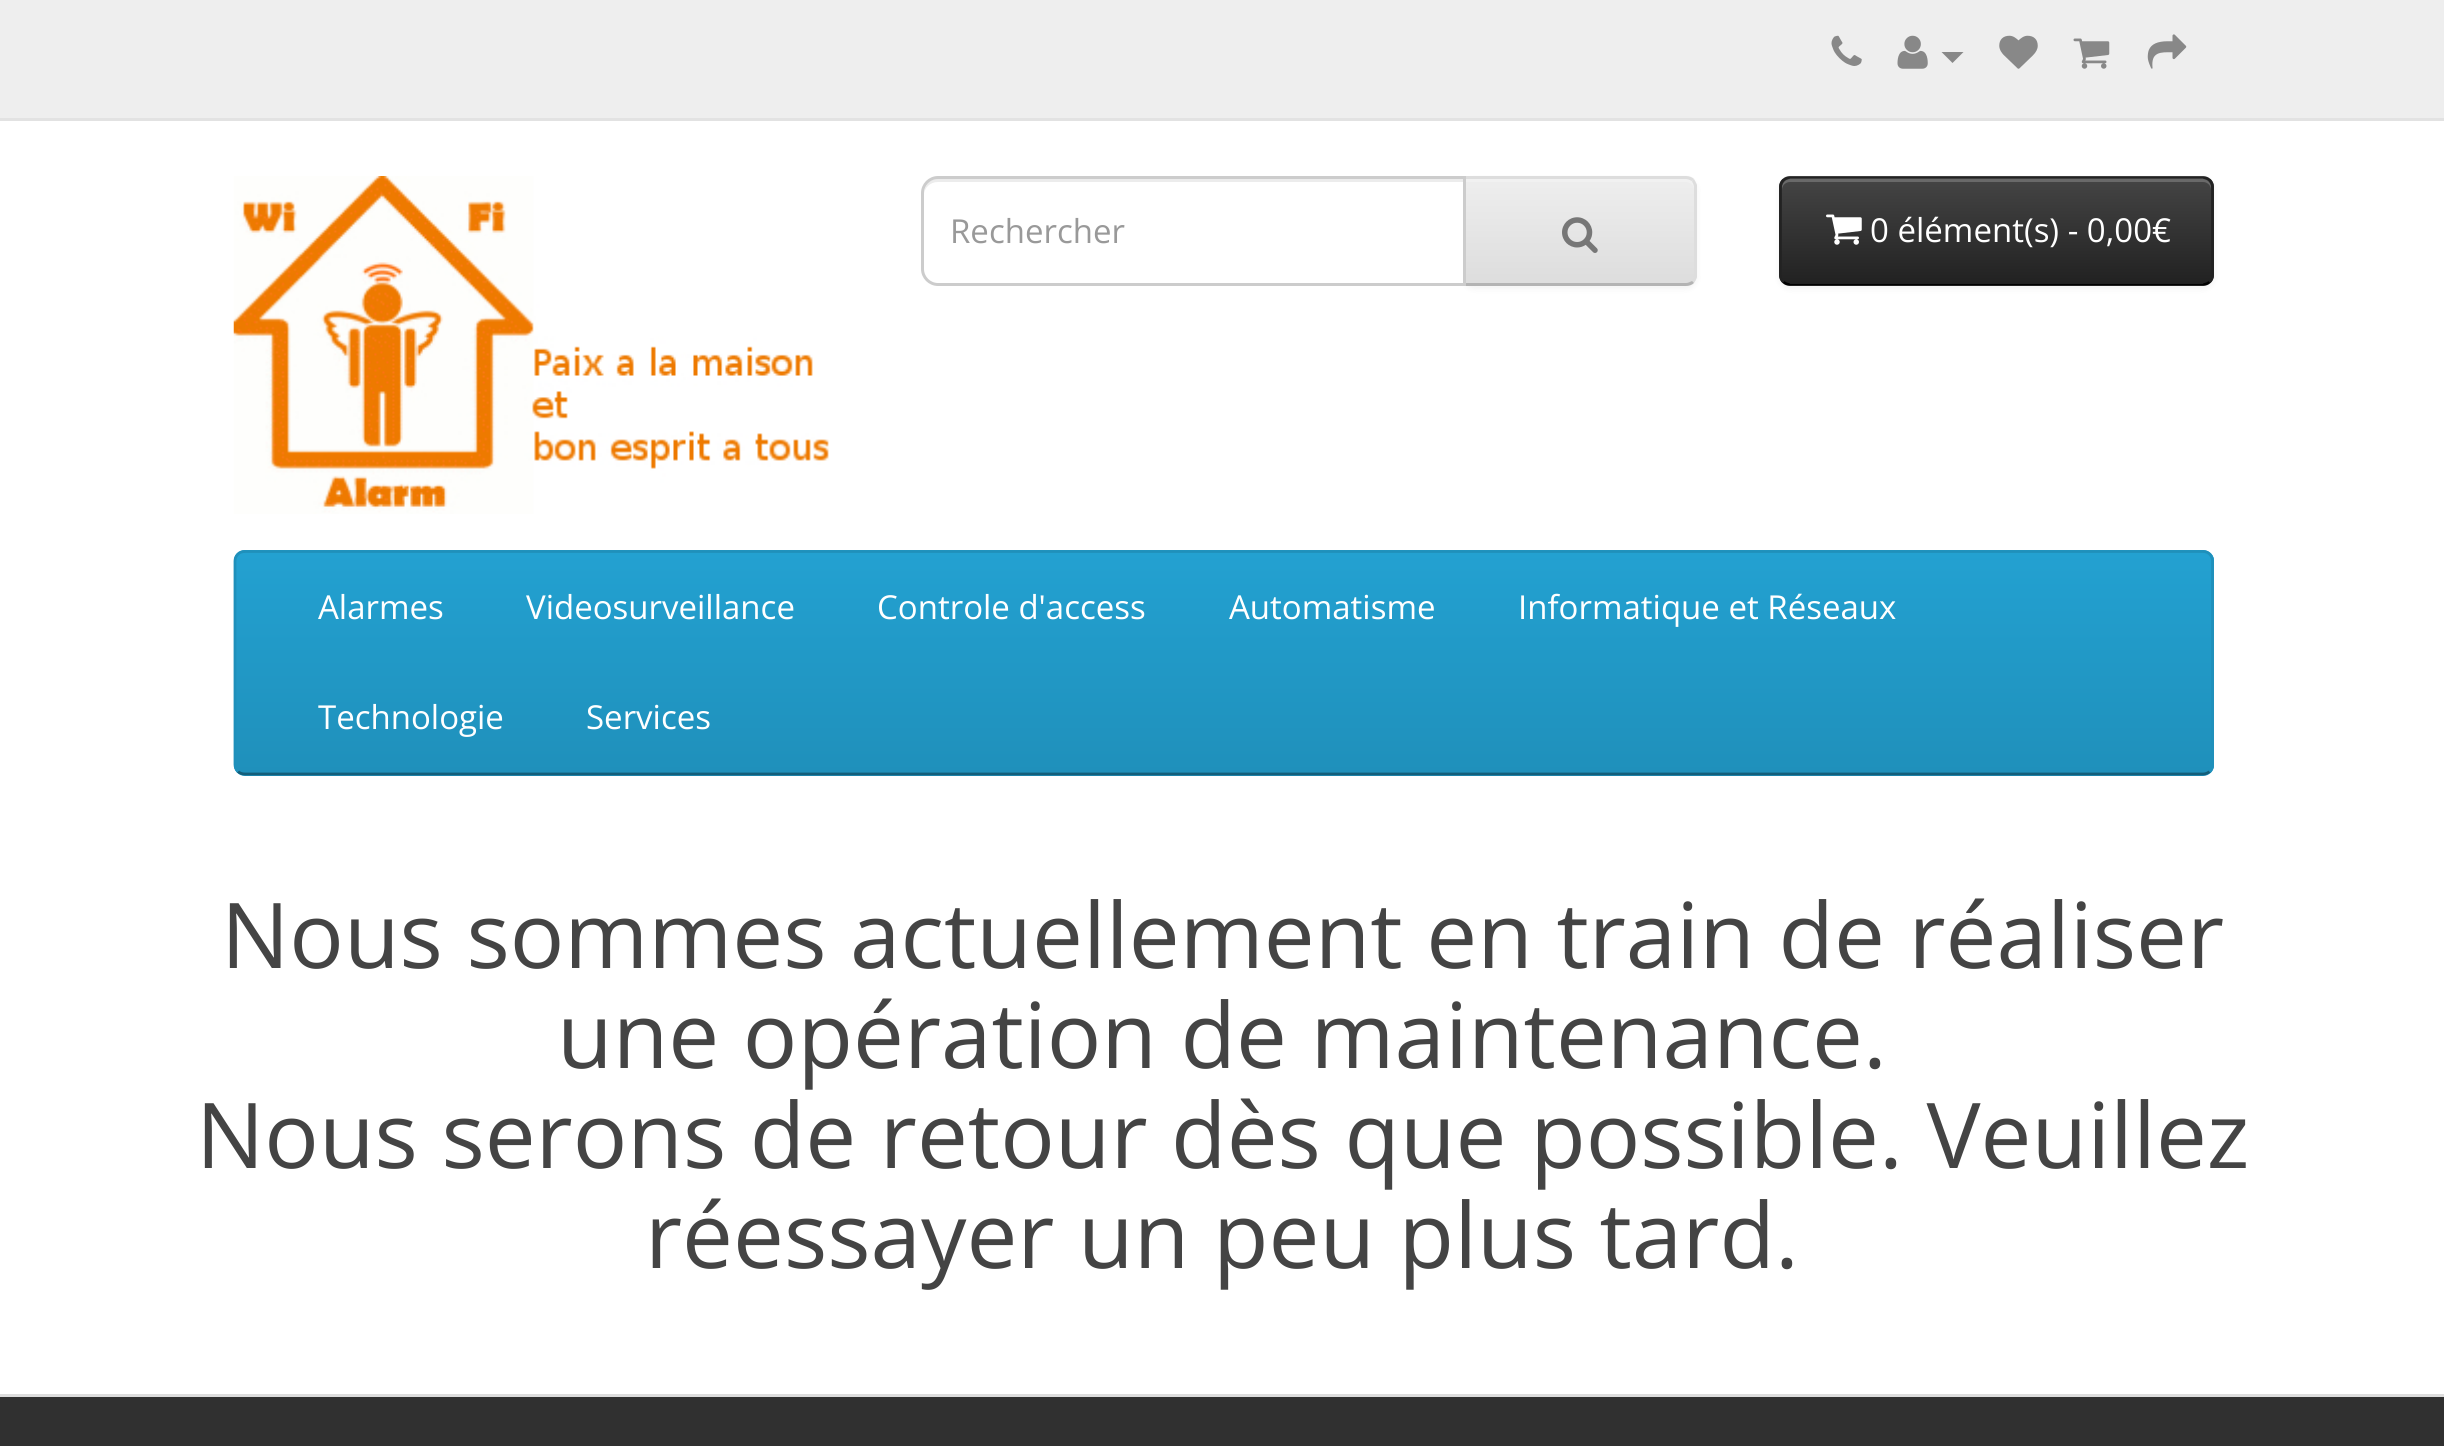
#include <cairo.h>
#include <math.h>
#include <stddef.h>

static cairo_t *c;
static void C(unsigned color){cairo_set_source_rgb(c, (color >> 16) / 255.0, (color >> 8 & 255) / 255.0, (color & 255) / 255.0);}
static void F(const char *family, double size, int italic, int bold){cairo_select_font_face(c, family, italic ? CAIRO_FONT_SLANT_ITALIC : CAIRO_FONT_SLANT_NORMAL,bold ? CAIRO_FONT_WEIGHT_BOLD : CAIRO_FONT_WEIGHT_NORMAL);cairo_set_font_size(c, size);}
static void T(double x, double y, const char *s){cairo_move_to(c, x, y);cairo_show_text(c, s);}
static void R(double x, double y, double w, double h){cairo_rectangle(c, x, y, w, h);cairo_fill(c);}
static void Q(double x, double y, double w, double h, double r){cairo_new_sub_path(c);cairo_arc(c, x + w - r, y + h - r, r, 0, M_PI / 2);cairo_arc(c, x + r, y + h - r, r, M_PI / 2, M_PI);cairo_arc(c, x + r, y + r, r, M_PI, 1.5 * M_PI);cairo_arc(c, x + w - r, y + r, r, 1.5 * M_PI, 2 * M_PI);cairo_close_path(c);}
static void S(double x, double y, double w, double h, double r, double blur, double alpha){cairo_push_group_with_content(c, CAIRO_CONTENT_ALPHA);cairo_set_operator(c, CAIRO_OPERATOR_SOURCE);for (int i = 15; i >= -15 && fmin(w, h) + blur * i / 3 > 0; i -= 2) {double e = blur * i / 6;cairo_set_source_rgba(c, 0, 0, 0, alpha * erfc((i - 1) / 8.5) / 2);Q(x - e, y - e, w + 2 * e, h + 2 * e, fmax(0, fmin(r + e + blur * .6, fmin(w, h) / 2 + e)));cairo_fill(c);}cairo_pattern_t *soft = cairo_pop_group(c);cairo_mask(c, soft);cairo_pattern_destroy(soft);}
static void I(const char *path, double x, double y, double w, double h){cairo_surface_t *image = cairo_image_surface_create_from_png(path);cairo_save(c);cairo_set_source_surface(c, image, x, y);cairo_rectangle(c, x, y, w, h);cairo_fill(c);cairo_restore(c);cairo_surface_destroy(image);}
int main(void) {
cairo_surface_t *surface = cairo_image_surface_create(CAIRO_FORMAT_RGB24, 2444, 1446);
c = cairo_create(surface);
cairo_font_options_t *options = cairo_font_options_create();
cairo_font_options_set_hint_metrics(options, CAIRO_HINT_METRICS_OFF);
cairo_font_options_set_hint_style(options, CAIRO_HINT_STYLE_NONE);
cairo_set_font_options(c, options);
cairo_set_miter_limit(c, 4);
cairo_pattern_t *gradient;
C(0xffffff);
cairo_paint(c);
C(0xeeeeee);
R(0,0,2444,118);
C(0xe2e2e2);
R(0,118,2444,3);
I("1.png",1831,35,31,31);
I("2.png",1897,35,31,34);
C(0x888888);
cairo_new_path(c);
cairo_move_to(c,1941.5,52);
cairo_line_to(c,1963.5,52);
cairo_line_to(c,1952.5,63);
cairo_close_path(c);
cairo_fill(c);
I("3.png",1999,35,39,34);
I("4.png",2073,38,37,31);
I("5.png",2147,34,40,35);
I("6.png",233,176,596,338);
C(0x000000);
S(1463,179,234,110,11,3,.05);
cairo_save(c);
cairo_new_path(c);
cairo_move_to(c,1463,176);
cairo_line_to(c,1686,176);
cairo_curve_to(c,1692,176,1697,181,1697,187);
cairo_line_to(c,1697,275);
cairo_curve_to(c,1697,281,1692,286,1686,286);
cairo_line_to(c,1463,286);
cairo_close_path(c);
cairo_clip(c);
gradient = cairo_pattern_create_linear(1580,179,1580,283);
cairo_pattern_add_color_stop_rgba(gradient,0,0.933,0.933,0.933,1);
cairo_pattern_add_color_stop_rgba(gradient,1,0.867,0.867,0.867,1);
cairo_set_source(c,gradient);
cairo_pattern_destroy(gradient);
R(1466,179,231,104);
cairo_restore(c);
C(0xf1f1f1);
cairo_new_path(c);
cairo_move_to(c,1466,182);
cairo_line_to(c,1686,182);
cairo_curve_to(c,1690,182,1694,185,1694,190);
cairo_line_to(c,1694,187);
cairo_curve_to(c,1694,183,1690,179,1686,179);
cairo_line_to(c,1466,179);
cairo_close_path(c);
cairo_fill(c);
C(0xdddddd);
cairo_new_path(c);
cairo_move_to(c,1463,176);
cairo_line_to(c,1466,179);
cairo_line_to(c,1686,179);
cairo_curve_to(c,1688,179,1690,180,1692,181);
cairo_line_to(c,1694,179);
cairo_curve_to(c,1692,177,1689,176,1686,176);
cairo_close_path(c);
cairo_fill(c);
cairo_new_path(c);
cairo_move_to(c,1697,277);
cairo_curve_to(c,1696,279,1695,281,1694,283);
cairo_line_to(c,1692,281);
cairo_curve_to(c,1693,279,1694,277,1694,275);
cairo_line_to(c,1694,187);
cairo_curve_to(c,1694,185,1693,183,1692,181);
cairo_line_to(c,1694,179);
cairo_curve_to(c,1695,181,1696,183,1697,185);
cairo_close_path(c);
cairo_fill(c);
C(0xb3b3b3);
cairo_new_path(c);
cairo_move_to(c,1686,286);
cairo_curve_to(c,1689,286,1692,285,1694,283);
cairo_line_to(c,1692,281);
cairo_curve_to(c,1690,282,1688,283,1686,283);
cairo_line_to(c,1466,283);
cairo_line_to(c,1463,286);
cairo_close_path(c);
cairo_fill(c);
C(0xffffff);
cairo_new_path(c);
cairo_move_to(c,938,176);
cairo_line_to(c,1466,176);
cairo_line_to(c,1466,286);
cairo_line_to(c,938,286);
cairo_curve_to(c,928.5,286,921,278.5,921,269);
cairo_line_to(c,921,193);
cairo_curve_to(c,921,183.5,928.5,176,938,176);
cairo_close_path(c);
cairo_fill(c);
C(0xececec);
cairo_new_path(c);
cairo_move_to(c,938,182);
cairo_line_to(c,1463,182);
cairo_line_to(c,1463,179);
cairo_line_to(c,935,179);
cairo_curve_to(c,927,181,924,188,924,195);
cairo_curve_to(c,924,188,930,182,938,182);
cairo_close_path(c);
cairo_fill(c);
cairo_new_path(c);
cairo_move_to(c,938,177.5);
cairo_line_to(c,1464.5,177.5);
cairo_line_to(c,1464.5,284.5);
cairo_line_to(c,938,284.5);
cairo_curve_to(c,929.5,284.5,922.5,277.5,922.5,269);
cairo_line_to(c,922.5,193);
cairo_curve_to(c,922.5,184.5,929.5,177.5,938,177.5);
cairo_close_path(c);
C(0xcccccc);
cairo_set_line_width(c,3);
cairo_stroke(c);
F("Open Sans",33,0,0);
C(0x999999);
T(950,243,"Rechercher");
I("7.png",1562,217,36,36);
C(0x000000);
S(1779,179,435,110,11,3,.05);
cairo_save(c);
Q(1779,176,435,110,11);
cairo_clip(c);
gradient = cairo_pattern_create_linear(1997,179,1997,283);
cairo_pattern_add_color_stop_rgba(gradient,0,0.267,0.267,0.267,1);
cairo_pattern_add_color_stop_rgba(gradient,1,0.133,0.133,0.133,1);
cairo_set_source(c,gradient);
cairo_pattern_destroy(gradient);
R(1779,179,435,104);
cairo_restore(c);
C(0x696969);
cairo_new_path(c);
cairo_move_to(c,1790,182);
cairo_line_to(c,2203,182);
cairo_curve_to(c,2207,182,2211,185,2211,190);
cairo_line_to(c,2211,187);
cairo_curve_to(c,2211,183,2207,179,2203,179);
cairo_line_to(c,1790,179);
cairo_curve_to(c,1786,179,1782,183,1782,187);
cairo_line_to(c,1782,190);
cairo_curve_to(c,1782,185,1786,182,1790,182);
cairo_close_path(c);
cairo_fill(c);
cairo_new_path(c);
cairo_move_to(c,2209.5,282);
cairo_curve_to(c,2208,283.5,2205.5,284.5,2203,284.5);
cairo_line_to(c,1790,284.5);
cairo_curve_to(c,1787.5,284.5,1785,283.5,1783.5,282);
C(0x000000);
cairo_set_line_width(c,2.8);
cairo_stroke(c);
cairo_new_path(c);
cairo_move_to(c,1783.5,282);
cairo_curve_to(c,1781.5,280,1780.5,277.5,1780.5,275);
cairo_line_to(c,1780.5,187);
cairo_curve_to(c,1780.5,184.5,1781.5,182,1783.5,180);
cairo_curve_to(c,1785,178.5,1787.5,177.5,1790,177.5);
cairo_line_to(c,2203,177.5);
cairo_curve_to(c,2205.5,177.5,2208,178.5,2209.5,180);
cairo_curve_to(c,2211.5,182,2212.5,184.5,2212.5,187);
cairo_line_to(c,2212.5,275);
cairo_curve_to(c,2212.5,277.5,2211.5,280,2209.5,282);
C(0x222222);
cairo_stroke(c);
I("8.png",1826,214,36,31);
C(0xffffff);
T(1870,242,"0 élément(s) - 0,00€");
C(0x229ac8);
Q(234,550,1980,226,11);
cairo_fill(c);
cairo_save(c);
Q(234,550,1980,226,11);
cairo_clip(c);
gradient = cairo_pattern_create_linear(1224,553,1224,773);
cairo_pattern_add_color_stop_rgba(gradient,0,0.137,0.631,0.82,1);
cairo_pattern_add_color_stop_rgba(gradient,1,0.122,0.565,0.733,1);
cairo_set_source(c,gradient);
cairo_pattern_destroy(gradient);
R(234,553,1980,220);
cairo_restore(c);
cairo_new_path(c);
cairo_move_to(c,2209.5,771.5);
cairo_curve_to(c,2208,773,2205.5,774,2203,774);
cairo_line_to(c,245,774);
cairo_curve_to(c,242,774,239.5,773,238,771.5);
C(0x145e7a);
cairo_stroke(c);
cairo_new_path(c);
cairo_move_to(c,238,771.5);
cairo_curve_to(c,236,769.5,235,767,235,764.5);
cairo_line_to(c,235,561);
cairo_curve_to(c,235,558.5,236,556,238,554);
cairo_curve_to(c,239.5,552.5,242,551.5,245,551.5);
cairo_line_to(c,2203,551.5);
cairo_curve_to(c,2205.5,551.5,2208,552.5,2209.5,554);
cairo_curve_to(c,2211.5,556,2212.5,558.5,2212.5,561);
cairo_line_to(c,2212.5,764.5);
cairo_curve_to(c,2212.5,767,2211.5,769.5,2209.5,771.5);
C(0x1f90bb);
cairo_stroke(c);
C(0xffffff);
T(318,619,"Alarmes");
T(526,619,"Videosurveillance");
T(877,619,"Controle d'access");
T(1229,619,"Automatisme");
T(1518,619,"Informatique et Réseaux");
T(318,729,"Technologie");
T(586,729,"Services");
F("Open Sans",90.75,0,0);
C(0x444444);
T(221,968,"Nous sommes actuellement en train de réaliser");
T(557,1068,"une opération de maintenance.");
T(196,1168,"Nous serons de retour dès que possible. Veuillez");
T(645,1268,"réessayer un peu plus tard.");
C(0x303030);
R(0,1397,2444,49);
C(0xdddddd);
R(0,1394,2444,3);
cairo_surface_write_to_png(surface, "o.png");
cairo_font_options_destroy(options);
cairo_destroy(c);
cairo_surface_destroy(surface);
return 0;
}
